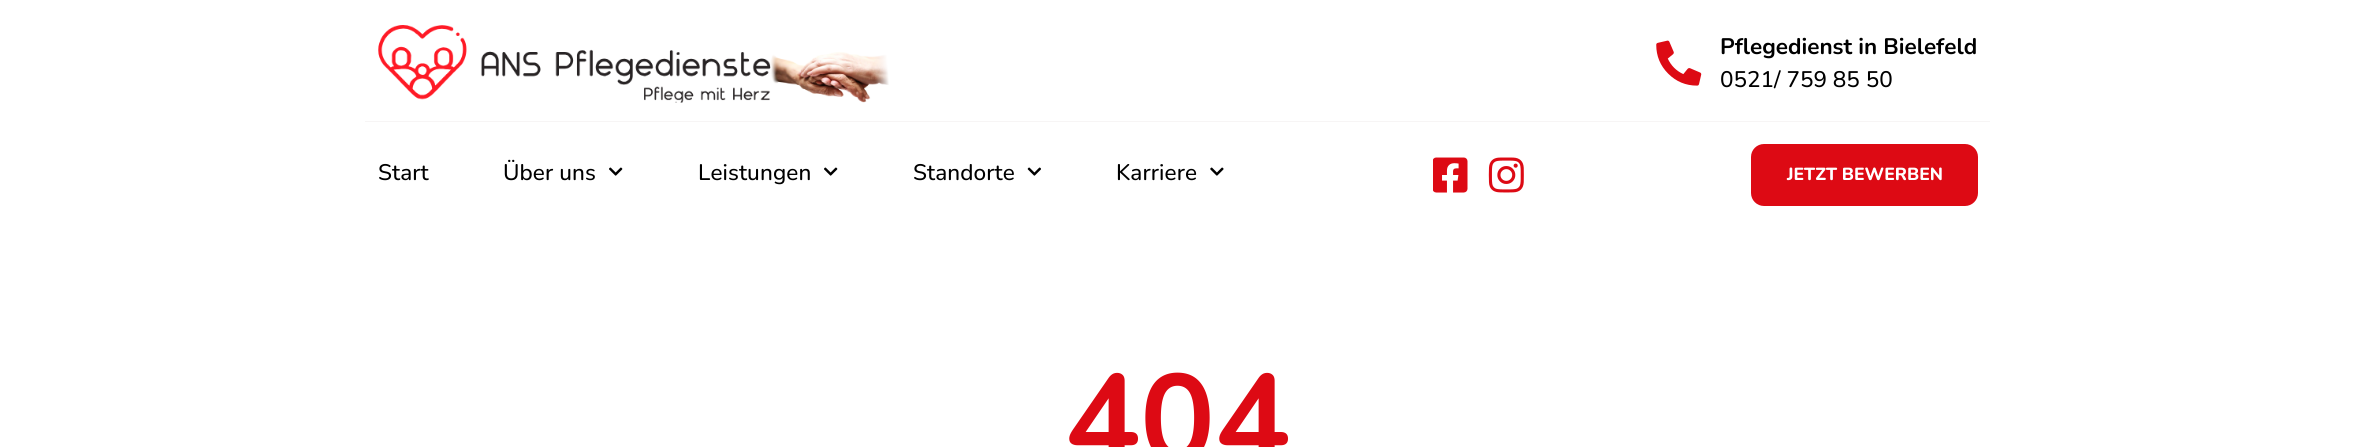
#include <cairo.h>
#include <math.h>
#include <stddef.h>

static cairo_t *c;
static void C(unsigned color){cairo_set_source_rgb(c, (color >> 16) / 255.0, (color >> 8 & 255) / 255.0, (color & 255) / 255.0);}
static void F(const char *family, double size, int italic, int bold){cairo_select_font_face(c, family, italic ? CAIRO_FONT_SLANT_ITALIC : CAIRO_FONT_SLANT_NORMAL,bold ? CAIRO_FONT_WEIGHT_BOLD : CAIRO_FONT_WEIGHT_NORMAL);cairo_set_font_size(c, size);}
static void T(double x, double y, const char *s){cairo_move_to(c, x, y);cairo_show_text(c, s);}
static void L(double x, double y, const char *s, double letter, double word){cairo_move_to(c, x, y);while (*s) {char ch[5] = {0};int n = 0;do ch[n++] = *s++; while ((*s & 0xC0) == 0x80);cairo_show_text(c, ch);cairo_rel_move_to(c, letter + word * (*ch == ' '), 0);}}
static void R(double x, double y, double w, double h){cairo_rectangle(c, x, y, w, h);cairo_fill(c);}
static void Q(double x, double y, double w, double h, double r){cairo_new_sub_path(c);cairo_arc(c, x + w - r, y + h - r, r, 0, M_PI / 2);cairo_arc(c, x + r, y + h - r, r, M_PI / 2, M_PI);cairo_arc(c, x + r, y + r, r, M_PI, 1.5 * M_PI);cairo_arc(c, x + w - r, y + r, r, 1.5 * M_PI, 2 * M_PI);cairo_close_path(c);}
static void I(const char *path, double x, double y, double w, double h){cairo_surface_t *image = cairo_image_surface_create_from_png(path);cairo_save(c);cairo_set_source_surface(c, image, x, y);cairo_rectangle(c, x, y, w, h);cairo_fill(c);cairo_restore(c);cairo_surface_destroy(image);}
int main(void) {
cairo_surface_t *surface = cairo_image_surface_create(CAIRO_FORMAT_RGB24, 2354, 447);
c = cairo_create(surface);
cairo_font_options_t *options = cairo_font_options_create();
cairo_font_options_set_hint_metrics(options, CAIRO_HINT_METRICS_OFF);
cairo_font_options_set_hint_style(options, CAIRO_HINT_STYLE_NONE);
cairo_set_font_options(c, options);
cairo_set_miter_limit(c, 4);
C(0xffffff);
cairo_paint(c);
C(0xf7f5f5);
R(365,121,1625,1);
I("1.png",378,25,511,78);
I("2.png",1656,40,46,46);
F("Nunito",22.5,0,1);
C(0x000000);
T(1720,54,"Pflegedienst in Bielefeld");
F("Nunito Medium",22.5,0,0);
T(1720,87,"0521/ 759 85 50");
L(378,180,"Start",.1,0);
L(503,180,"Über uns",.1,0);
I("3.png",609,167,14,9);
L(698,180,"Leistungen",.1,0);
I("3.png",824,167,14,9);
L(913,180,"Standorte",.1,0);
I("4.png",1027,167,14,9);
L(1116,180,"Karriere",.1,0);
I("5.png",1210,167,14,9);
I("6.png",1433,157,35,36);
I("7.png",1488,157,36,36);
C(0xdd0a14);
Q(1753,146,223,58,11);
cairo_fill_preserve(c);
cairo_set_line_width(c,4);
cairo_stroke(c);
F("Nunito ExtraBold",17.5,0,0);
C(0xffffff);
T(1787,180,"JETZT BEWERBEN");
F("Nunito",125,0,1);
C(0xdd0a14);
T(1065,462,"404");
cairo_surface_write_to_png(surface, "o.png");
cairo_font_options_destroy(options);
cairo_destroy(c);
cairo_surface_destroy(surface);
return 0;
}
